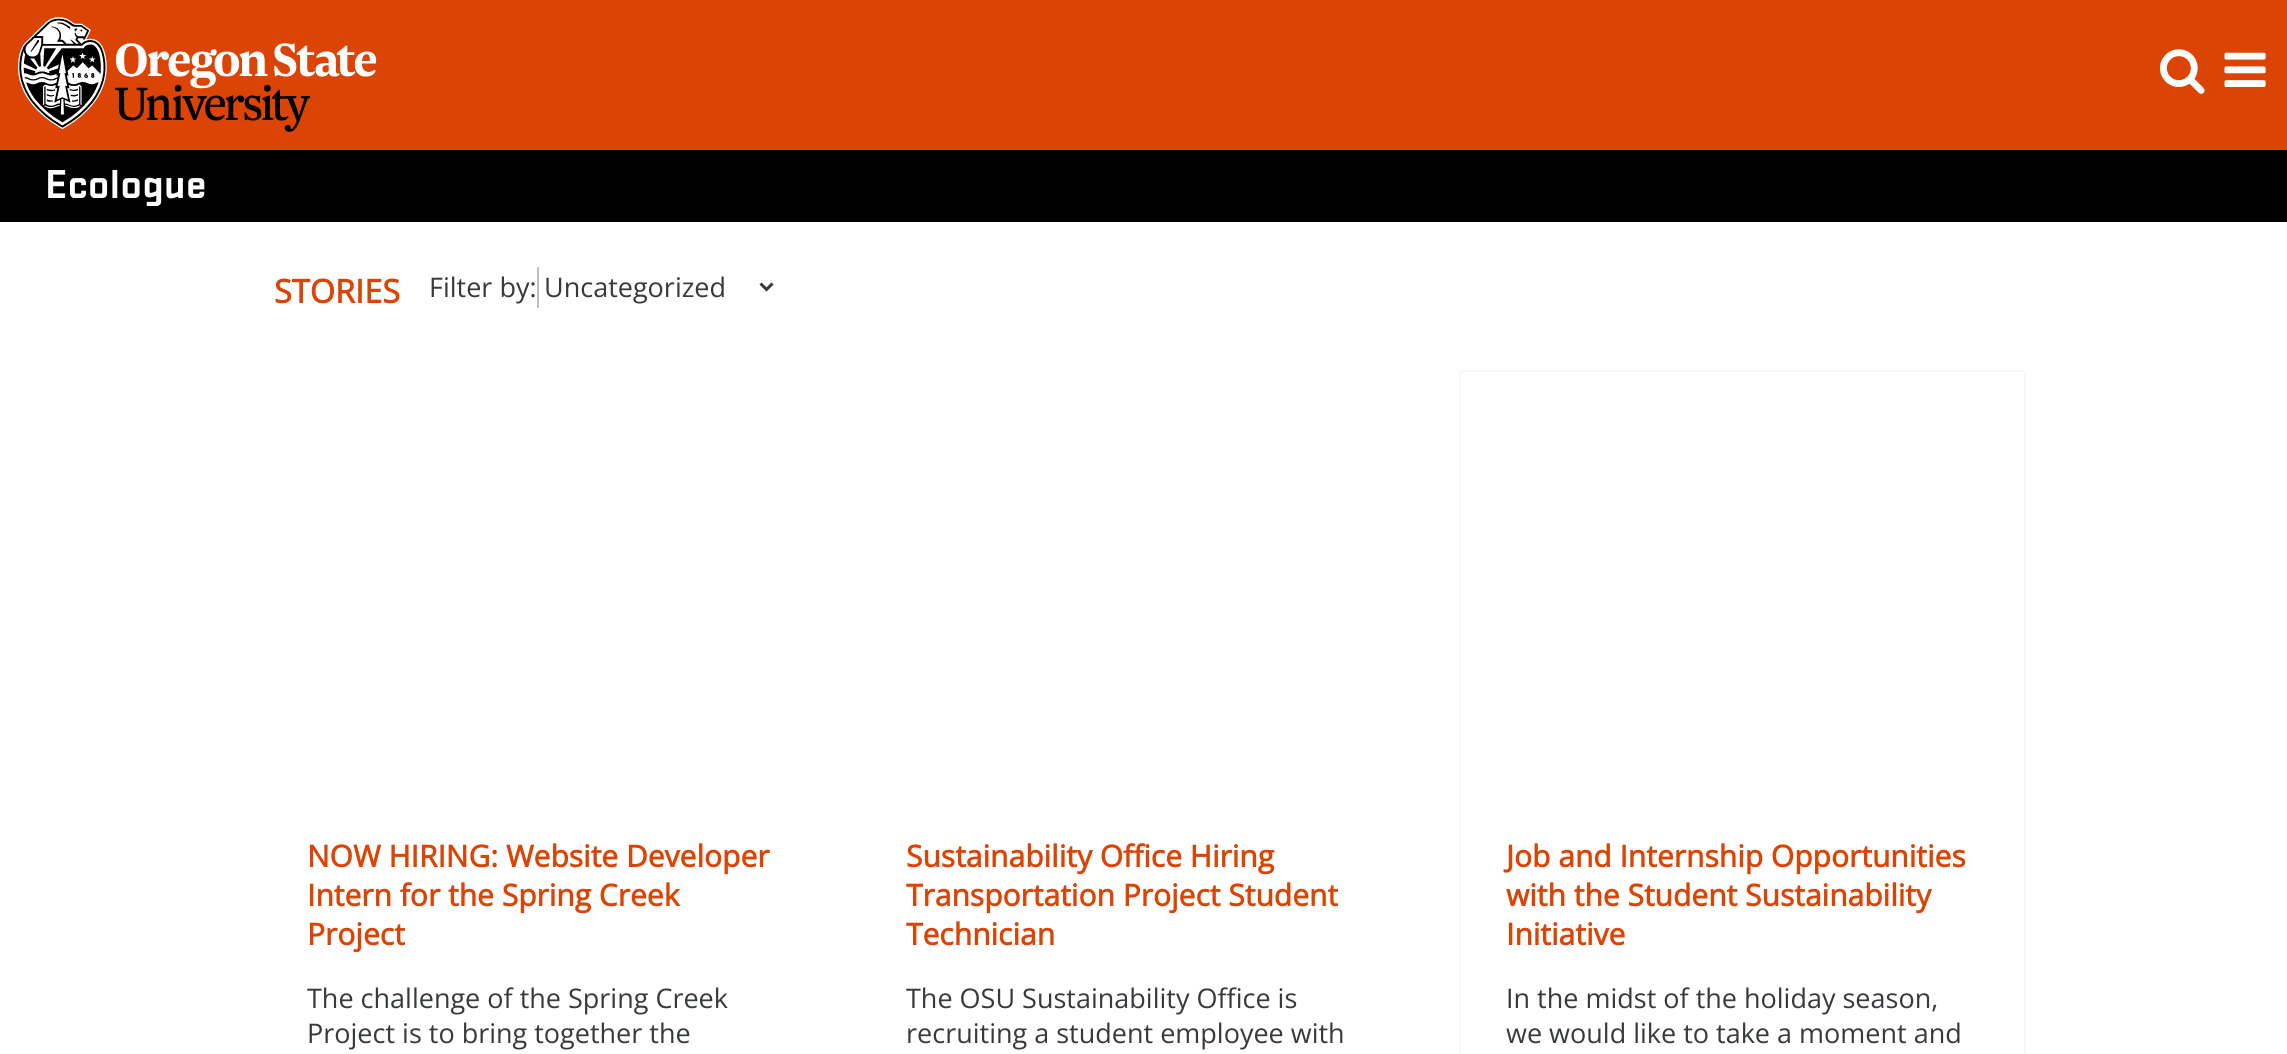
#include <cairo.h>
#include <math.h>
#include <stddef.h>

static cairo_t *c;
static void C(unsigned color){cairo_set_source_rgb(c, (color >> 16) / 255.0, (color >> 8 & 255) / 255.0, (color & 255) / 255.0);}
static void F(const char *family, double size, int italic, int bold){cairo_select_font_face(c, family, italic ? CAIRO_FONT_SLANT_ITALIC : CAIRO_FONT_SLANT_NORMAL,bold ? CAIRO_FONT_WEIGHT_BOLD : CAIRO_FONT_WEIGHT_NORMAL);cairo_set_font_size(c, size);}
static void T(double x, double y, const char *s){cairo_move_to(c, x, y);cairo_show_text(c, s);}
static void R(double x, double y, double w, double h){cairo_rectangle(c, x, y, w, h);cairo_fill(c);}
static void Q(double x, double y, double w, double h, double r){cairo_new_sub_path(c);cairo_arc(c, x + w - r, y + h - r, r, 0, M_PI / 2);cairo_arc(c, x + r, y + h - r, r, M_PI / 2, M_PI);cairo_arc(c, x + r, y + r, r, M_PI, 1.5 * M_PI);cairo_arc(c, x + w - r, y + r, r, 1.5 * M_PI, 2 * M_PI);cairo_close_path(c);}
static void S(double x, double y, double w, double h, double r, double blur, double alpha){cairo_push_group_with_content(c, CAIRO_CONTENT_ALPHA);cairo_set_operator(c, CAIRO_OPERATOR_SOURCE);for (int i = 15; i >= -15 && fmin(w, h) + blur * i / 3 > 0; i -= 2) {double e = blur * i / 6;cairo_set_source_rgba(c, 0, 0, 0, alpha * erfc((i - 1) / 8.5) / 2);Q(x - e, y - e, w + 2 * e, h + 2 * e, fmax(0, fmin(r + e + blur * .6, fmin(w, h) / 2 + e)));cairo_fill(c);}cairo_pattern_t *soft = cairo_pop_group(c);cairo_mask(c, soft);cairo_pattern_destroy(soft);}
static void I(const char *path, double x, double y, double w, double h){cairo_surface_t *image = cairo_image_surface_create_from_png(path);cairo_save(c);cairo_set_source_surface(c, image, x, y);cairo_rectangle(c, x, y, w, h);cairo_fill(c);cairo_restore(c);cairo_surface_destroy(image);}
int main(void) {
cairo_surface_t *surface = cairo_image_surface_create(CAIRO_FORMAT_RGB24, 2287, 1054);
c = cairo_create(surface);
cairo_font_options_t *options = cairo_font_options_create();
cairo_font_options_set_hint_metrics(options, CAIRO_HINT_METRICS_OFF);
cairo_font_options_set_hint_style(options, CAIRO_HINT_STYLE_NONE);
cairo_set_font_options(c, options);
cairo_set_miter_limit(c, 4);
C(0xffffff);
cairo_paint(c);
C(0xdc4405);
R(0,0,2287,150);
I("1.png",2160,49,45,45);
I("2.png",2224,52,42,35);
I("3.png",18,17,359,115);
C(0x000000);
R(0,150,2287,72);
F("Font",42,0,1);
C(0xffffff);
T(45,198,"Ecologue");
F("Open Sans",32.5,0,1);
C(0xdc4405);
T(274,303,"STORIES");
F("Open Sans",27,0,0);
C(0x373a3c);
T(429,297,"Filter by:");
C(0xbfbfbf);
R(537,267,2,41);
cairo_new_path(c);
cairo_move_to(c,760.5,283.5);
cairo_line_to(c,766.5,289.5);
cairo_line_to(c,772.5,283.5);
C(0x373a3c);
cairo_set_line_width(c,3);
cairo_stroke(c);
T(544,297,"Uncategorized");
F("Open Sans",30,0,1);
C(0xdc4405);
T(307,867,"NOW HIRING: Website Developer");
T(307,906,"Intern for the Spring Creek");
T(307,945,"Project");
F("Open Sans",27,0,0);
C(0x373a3c);
T(307,1008,"The challenge of the Spring Creek");
T(307,1043,"Project is to bring together the");
F("Open Sans",30,0,1);
C(0xdc4405);
T(906,867,"Sustainability Office Hiring");
T(906,906,"Transportation Project Student");
T(906,945,"Technician");
F("Open Sans",27,0,0);
C(0x373a3c);
T(906,1008,"The OSU Sustainability Office is");
T(906,1043,"recruiting a student employee with");
C(0x000000);
S(1461,372,563,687,0,1.5,.1);
C(0xffffff);
R(1461,372,563,682);
F("Open Sans",30,0,1);
C(0xdc4405);
T(1506,867,"Job and Internship Opportunities");
T(1506,906,"with the Student Sustainability");
T(1506,945,"Initiative");
F("Open Sans",27,0,0);
C(0x373a3c);
T(1506,1008,"In the midst of the holiday season,");
T(1506,1043,"we would like to take a moment and");
cairo_surface_write_to_png(surface, "o.png");
cairo_font_options_destroy(options);
cairo_destroy(c);
cairo_surface_destroy(surface);
return 0;
}
